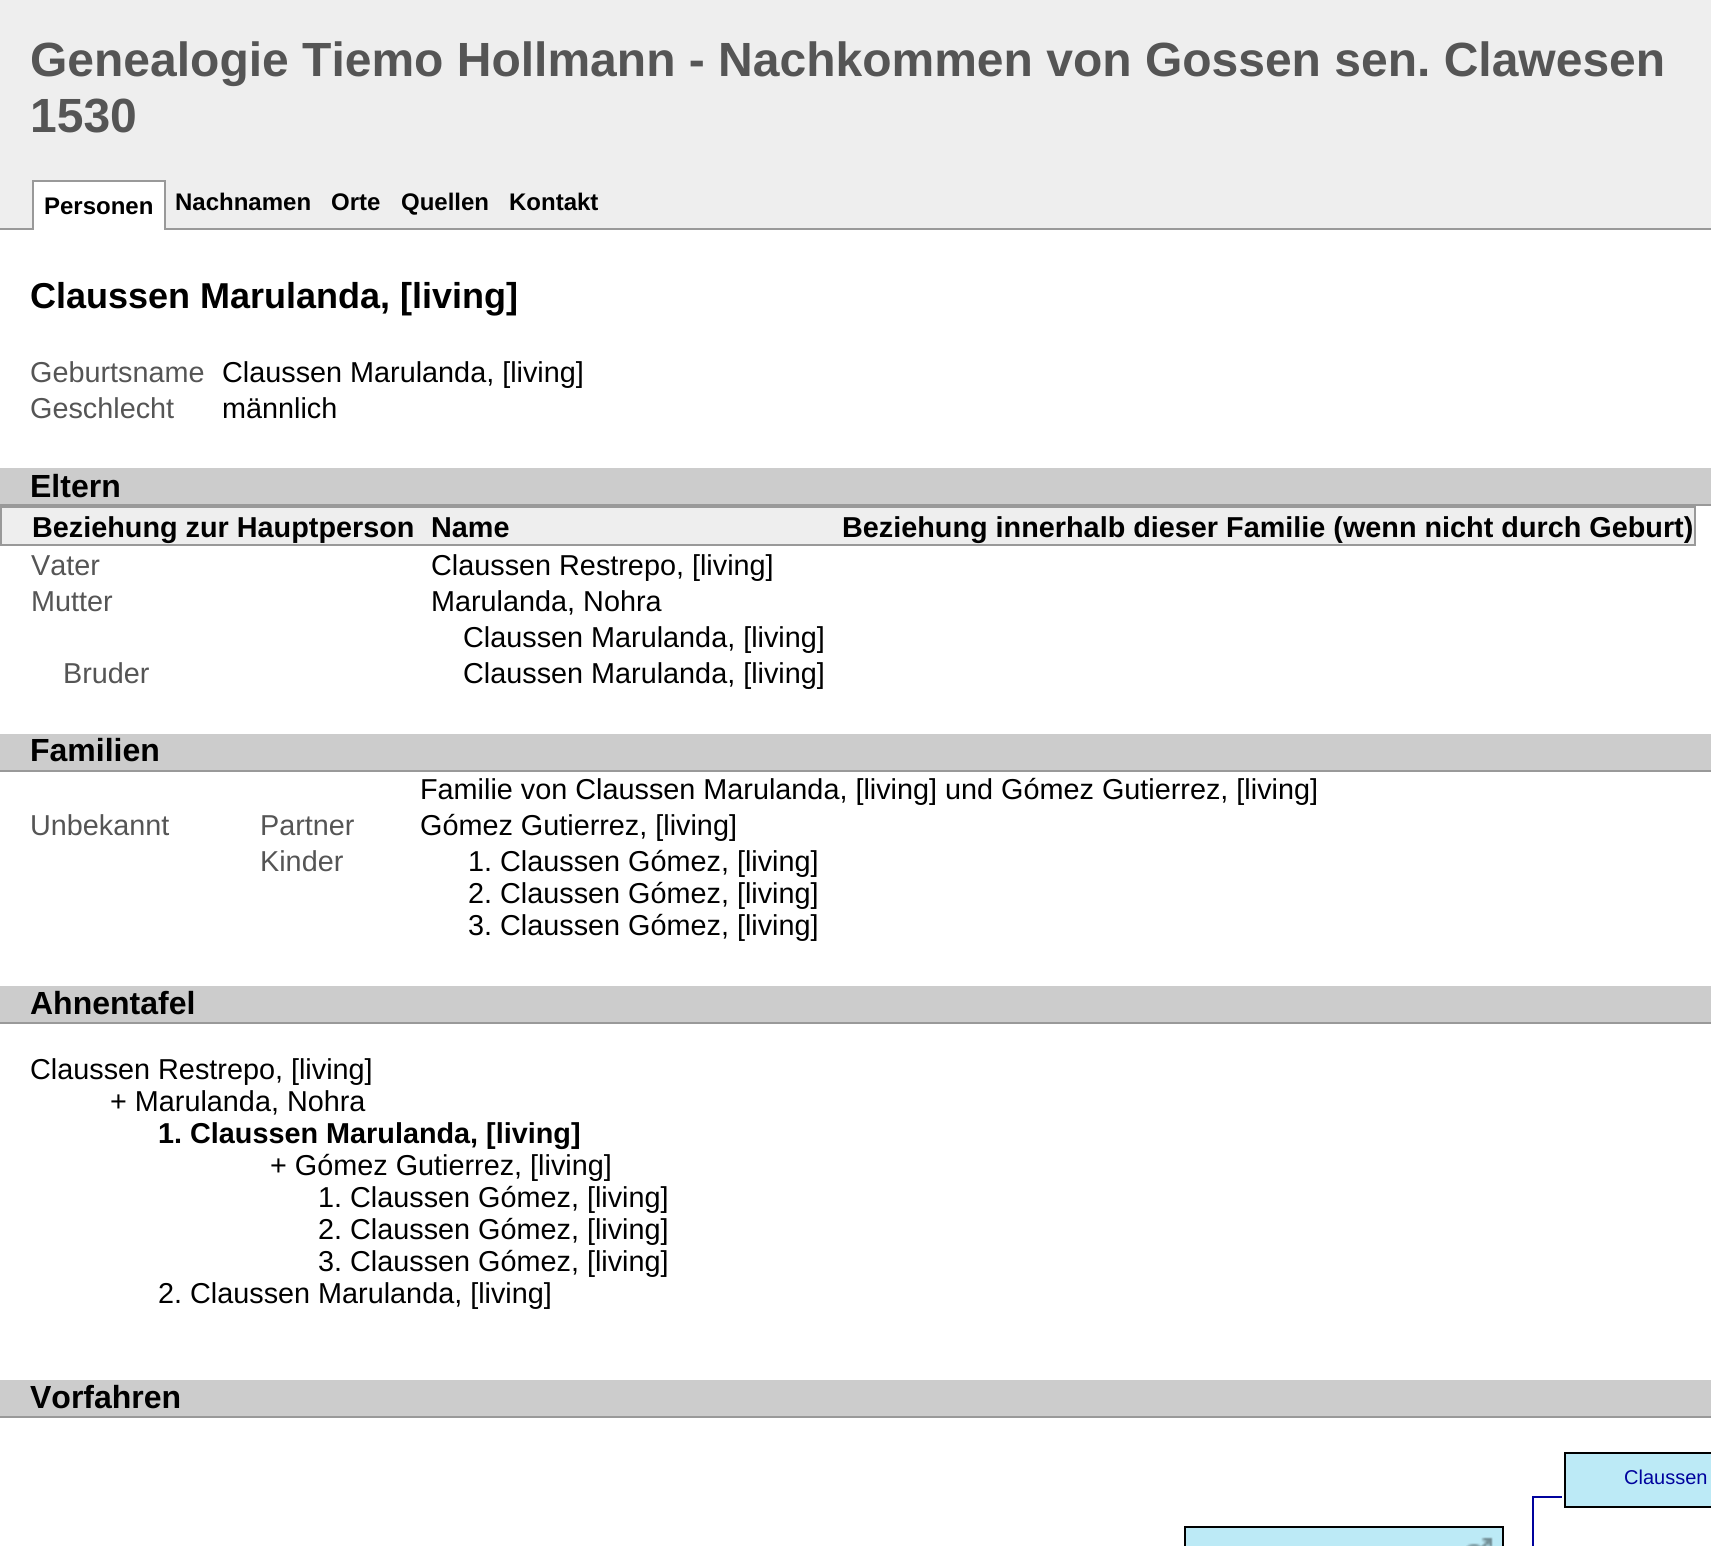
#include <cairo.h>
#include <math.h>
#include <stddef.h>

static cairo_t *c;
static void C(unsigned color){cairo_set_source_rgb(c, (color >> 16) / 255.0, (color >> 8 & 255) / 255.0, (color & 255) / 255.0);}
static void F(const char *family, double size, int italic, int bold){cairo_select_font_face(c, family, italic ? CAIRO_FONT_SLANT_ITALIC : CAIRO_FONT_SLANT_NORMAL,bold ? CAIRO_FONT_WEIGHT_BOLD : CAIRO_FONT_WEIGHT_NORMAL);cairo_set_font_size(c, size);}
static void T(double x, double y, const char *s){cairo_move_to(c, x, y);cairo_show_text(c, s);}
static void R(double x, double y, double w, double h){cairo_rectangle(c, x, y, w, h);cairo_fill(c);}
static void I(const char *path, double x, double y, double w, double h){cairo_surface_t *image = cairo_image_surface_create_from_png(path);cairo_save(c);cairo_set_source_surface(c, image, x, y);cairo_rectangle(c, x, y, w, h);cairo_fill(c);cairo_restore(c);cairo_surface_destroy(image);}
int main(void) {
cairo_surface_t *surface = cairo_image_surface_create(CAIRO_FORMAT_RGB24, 1711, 1546);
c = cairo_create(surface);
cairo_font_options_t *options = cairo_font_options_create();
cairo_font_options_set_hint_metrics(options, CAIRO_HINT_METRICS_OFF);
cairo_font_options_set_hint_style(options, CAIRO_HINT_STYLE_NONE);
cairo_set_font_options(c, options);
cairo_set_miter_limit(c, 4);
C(0xeeeeee);
cairo_paint(c);
F("Liberation Sans",48,0,1);
C(0x555555);
T(30,76,"Genealogie Tiemo Hollmann - Nachkommen von Gossen sen. Clawesen");
T(30,132,"1530");
C(0x999999);
R(0,228,1711,2);
C(0xffffff);
R(34,182,130,48);
C(0x999999);
R(32,180,134,2);
R(164,180,2,50);
R(32,180,2,50);
F("Liberation Sans",24,0,1);
C(0x000000);
T(44,214,"Personen");
T(175,210,"Nachnamen");
T(331,210,"Orte");
T(401,210,"Quellen");
T(509,210,"Kontakt");
C(0xffffff);
R(0,230,1711,1316);
F("Liberation Sans",36,0,1);
C(0x000000);
T(30,308,"Claussen Marulanda, [living]");
F("Liberation Sans",28.8,0,0);
C(0x555555);
T(30,382,"Geburtsname");
C(0x000000);
T(222,382,"Claussen Marulanda, [living]");
C(0x555555);
T(30,418,"Geschlecht");
C(0x000000);
T(222,418,"männlich");
C(0xcccccc);
R(0,468,1711,36);
C(0x999999);
R(0,504,1711,2);
F("Liberation Sans",32,0,1);
C(0x000000);
T(30,497,"Eltern");
C(0xeeeeee);
R(2,508,1692,36);
C(0x999999);
R(0,506,1696,2);
R(1694,506,2,40);
R(0,544,1696,2);
R(0,506,2,40);
F("Liberation Sans",28.8,0,1);
C(0x000000);
T(32,537,"Beziehung zur Hauptperson");
T(431,537,"Name");
T(842,537,"Beziehung innerhalb dieser Familie (wenn nicht durch Geburt)");
F("Liberation Sans",28.8,0,0);
C(0x555555);
T(31,575,"Vater");
C(0x000000);
T(431,575,"Claussen Restrepo, [living]");
C(0x555555);
T(31,611,"Mutter");
C(0x000000);
T(431,611,"Marulanda, Nohra");
T(463,647,"Claussen Marulanda, [living]");
C(0x555555);
T(63,683,"Bruder");
C(0x000000);
T(463,683,"Claussen Marulanda, [living]");
C(0xcccccc);
R(0,734,1711,36);
C(0x999999);
R(0,770,1711,2);
F("Liberation Sans",32,0,1);
C(0x000000);
T(30,761,"Familien");
F("Liberation Sans",28.8,0,0);
T(420,799,"Familie von Claussen Marulanda, [living] und Gómez Gutierrez, [living]");
C(0x555555);
T(30,835,"Unbekannt");
T(260,835,"Partner");
C(0x000000);
T(420,835,"Gómez Gutierrez, [living]");
C(0x555555);
T(260,871,"Kinder");
C(0x000000);
T(468,871,"1. Claussen Gómez, [living]");
T(468,903,"2. Claussen Gómez, [living]");
T(468,935,"3. Claussen Gómez, [living]");
C(0xcccccc);
R(0,986,1711,36);
C(0x999999);
R(0,1022,1711,2);
F("Liberation Sans",32,0,1);
C(0x000000);
T(30,1014,"Ahnentafel");
F("Liberation Sans",28.8,0,0);
T(30,1079,"Claussen Restrepo, [living]");
T(110,1111,"+ Marulanda, Nohra");
F("Liberation Sans",28.8,0,1);
T(158,1143,"1. Claussen Marulanda, [living]");
F("Liberation Sans",28.8,0,0);
T(270,1175,"+ Gómez Gutierrez, [living]");
T(318,1207,"1. Claussen Gómez, [living]");
T(318,1239,"2. Claussen Gómez, [living]");
T(318,1271,"3. Claussen Gómez, [living]");
T(158,1303,"2. Claussen Marulanda, [living]");
C(0xcccccc);
R(0,1380,1711,36);
C(0x999999);
R(0,1416,1711,2);
F("Liberation Sans",32,0,1);
C(0x000000);
T(30,1408,"Vorfahren");
C(0xbceaf6);
cairo_rectangle(c,1565,1453,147,54);
cairo_fill_preserve(c);
C(0x000000);
cairo_stroke(c);
F("Liberation Sans",20,0,0);
C(0x00029d);
T(1624,1484,"Claussen");
R(1532,1496,30,2);
C(0xbceaf6);
R(1186,1528,316,18);
I("1.png",1466,1537,27,9);
cairo_rectangle(c,1185,1527,318,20);
C(0x000000);
cairo_stroke(c);
C(0x00029d);
R(1532,1496,2,50);
cairo_surface_write_to_png(surface, "o.png");
cairo_font_options_destroy(options);
cairo_destroy(c);
cairo_surface_destroy(surface);
return 0;
}
